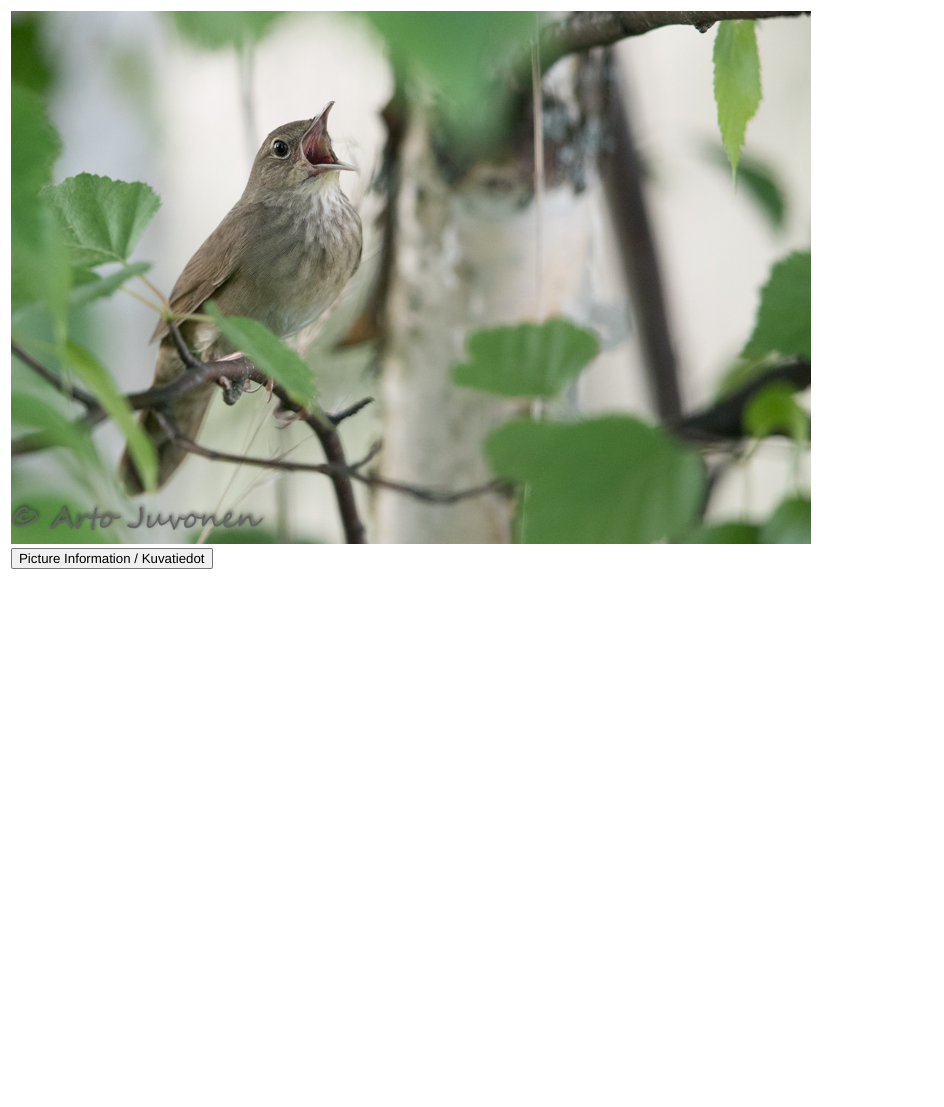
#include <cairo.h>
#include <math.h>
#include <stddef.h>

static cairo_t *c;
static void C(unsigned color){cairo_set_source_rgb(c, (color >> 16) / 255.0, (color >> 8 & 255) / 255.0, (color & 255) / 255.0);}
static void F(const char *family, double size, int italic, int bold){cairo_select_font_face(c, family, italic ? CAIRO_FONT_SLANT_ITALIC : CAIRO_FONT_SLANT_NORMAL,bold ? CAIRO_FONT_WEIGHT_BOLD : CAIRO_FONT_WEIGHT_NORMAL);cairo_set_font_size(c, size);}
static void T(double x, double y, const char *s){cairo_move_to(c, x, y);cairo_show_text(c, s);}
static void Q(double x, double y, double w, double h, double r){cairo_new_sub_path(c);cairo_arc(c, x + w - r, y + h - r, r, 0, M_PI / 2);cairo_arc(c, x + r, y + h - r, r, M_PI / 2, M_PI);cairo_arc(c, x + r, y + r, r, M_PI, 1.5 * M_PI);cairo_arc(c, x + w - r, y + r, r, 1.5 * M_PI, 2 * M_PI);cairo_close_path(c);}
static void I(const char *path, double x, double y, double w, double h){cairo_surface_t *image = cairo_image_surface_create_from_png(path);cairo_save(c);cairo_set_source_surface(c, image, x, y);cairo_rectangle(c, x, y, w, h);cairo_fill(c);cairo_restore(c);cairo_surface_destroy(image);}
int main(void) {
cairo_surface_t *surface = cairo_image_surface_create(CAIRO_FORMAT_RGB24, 944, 1107);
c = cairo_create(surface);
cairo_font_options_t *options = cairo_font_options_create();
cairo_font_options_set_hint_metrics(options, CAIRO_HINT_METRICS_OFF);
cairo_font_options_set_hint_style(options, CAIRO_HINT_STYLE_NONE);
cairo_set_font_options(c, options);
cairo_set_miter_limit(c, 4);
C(0xffffff);
cairo_paint(c);
I("1.png",11,11,800,533);
C(0xefefef);
Q(11.5,548.5,201,20,1.5);
cairo_fill_preserve(c);
C(0x767676);
cairo_set_line_width(c,1);
cairo_stroke(c);
F("Liberation Sans",13.3,0,0);
C(0x000000);
T(19,563,"Picture Information / Kuvatiedot");
cairo_surface_write_to_png(surface, "o.png");
cairo_font_options_destroy(options);
cairo_destroy(c);
cairo_surface_destroy(surface);
return 0;
}
